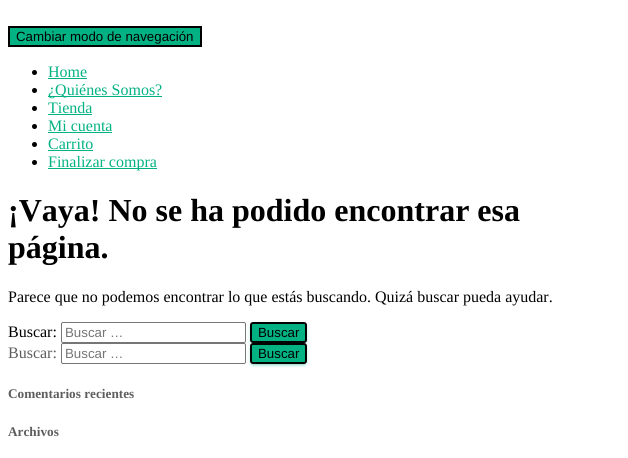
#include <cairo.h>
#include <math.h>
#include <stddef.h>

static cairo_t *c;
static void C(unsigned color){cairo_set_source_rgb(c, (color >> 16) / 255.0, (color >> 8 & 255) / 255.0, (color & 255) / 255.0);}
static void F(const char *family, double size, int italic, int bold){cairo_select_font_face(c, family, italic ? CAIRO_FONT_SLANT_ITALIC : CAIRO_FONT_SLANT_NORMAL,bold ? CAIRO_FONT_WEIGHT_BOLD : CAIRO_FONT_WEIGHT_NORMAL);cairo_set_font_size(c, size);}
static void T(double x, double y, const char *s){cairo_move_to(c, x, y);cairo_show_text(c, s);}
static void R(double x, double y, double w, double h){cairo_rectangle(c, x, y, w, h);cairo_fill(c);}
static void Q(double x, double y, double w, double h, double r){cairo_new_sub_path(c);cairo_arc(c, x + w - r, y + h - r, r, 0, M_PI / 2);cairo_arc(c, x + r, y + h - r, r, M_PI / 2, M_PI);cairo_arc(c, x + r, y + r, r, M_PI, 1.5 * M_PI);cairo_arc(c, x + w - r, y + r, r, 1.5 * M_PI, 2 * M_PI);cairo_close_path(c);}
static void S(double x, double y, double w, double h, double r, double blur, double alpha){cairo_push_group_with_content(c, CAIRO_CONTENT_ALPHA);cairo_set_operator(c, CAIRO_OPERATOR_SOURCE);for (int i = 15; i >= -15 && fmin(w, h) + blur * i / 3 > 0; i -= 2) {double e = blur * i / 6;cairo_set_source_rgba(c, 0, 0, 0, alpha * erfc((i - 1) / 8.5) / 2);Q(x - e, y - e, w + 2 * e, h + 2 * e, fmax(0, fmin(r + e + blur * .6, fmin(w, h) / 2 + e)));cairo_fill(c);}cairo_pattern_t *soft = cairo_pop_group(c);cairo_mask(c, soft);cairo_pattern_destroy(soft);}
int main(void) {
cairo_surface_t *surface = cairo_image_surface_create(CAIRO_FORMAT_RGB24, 628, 458);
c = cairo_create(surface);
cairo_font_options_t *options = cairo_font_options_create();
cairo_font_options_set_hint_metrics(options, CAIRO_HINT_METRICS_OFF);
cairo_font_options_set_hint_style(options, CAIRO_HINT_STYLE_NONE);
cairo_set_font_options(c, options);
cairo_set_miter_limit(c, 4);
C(0xffffff);
cairo_paint(c);
C(0x03b283);
cairo_rectangle(c,9,27,192,19);
cairo_fill_preserve(c);
C(0x000000);
cairo_stroke(c);
F("Liberation Sans",13.3,0,0);
T(16,41,"Cambiar modo de navegación");
cairo_new_path(c);
cairo_arc(c,34.5,72.5,2.5,0,2 * M_PI);
cairo_fill(c);
F("Liberation Serif",16,0,0);
C(0x03b283);
T(48,77,"Home");
R(48,78,39,1);
C(0x000000);
cairo_new_path(c);
cairo_arc(c,34.5,90.5,2.5,0,2 * M_PI);
cairo_fill(c);
C(0x03b283);
R(48,96,114,1);
T(48,95,"¿Quiénes Somos?");
C(0x000000);
cairo_new_path(c);
cairo_arc(c,34.5,108.5,2.5,0,2 * M_PI);
cairo_fill(c);
C(0x03b283);
T(48,113,"Tienda");
R(48,114,44,1);
C(0x000000);
cairo_new_path(c);
cairo_arc(c,34.5,126.5,2.5,0,2 * M_PI);
cairo_fill(c);
C(0x03b283);
T(48,131,"Mi cuenta");
R(48,132,64,1);
C(0x000000);
cairo_new_path(c);
cairo_arc(c,34.5,144.5,2.5,0,2 * M_PI);
cairo_fill(c);
C(0x03b283);
T(48,149,"Carrito");
R(48,150,45,1);
C(0x000000);
cairo_new_path(c);
cairo_arc(c,34.5,162.5,2.5,0,2 * M_PI);
cairo_fill(c);
C(0x03b283);
R(48,168,109,1);
T(48,167,"Finalizar compra");
F("Liberation Serif",32,0,1);
C(0x000000);
T(8,221,"¡Vaya! No se ha podido encontrar esa");
T(8,258,"página.");
F("Liberation Serif",16,0,0);
T(8,302,"Parece que no podemos encontrar lo que estás buscando. Quizá buscar pueda ayudar.");
T(8,337,"Buscar:");
Q(61.5,322.5,184,20,1.5);
C(0x767676);
cairo_set_line_width(c,1);
cairo_stroke(c);
F("Liberation Sans",13.3,0,0);
C(0x757575);
T(65,337,"Buscar …");
Q(61.5,343.5,184,20,1.5);
C(0x767676);
cairo_stroke(c);
C(0x03b283);
S(250,323,57,21,3,2.5,.12);
S(252,327,53,17,1,.5,.2);
S(250,324,57,21,3,1,.14);
C(0x03b283);
Q(251,323,55,19,2);
cairo_fill_preserve(c);
C(0x000000);
cairo_set_line_width(c,2);
cairo_stroke(c);
T(258,337,"Buscar");
F("Liberation Serif",16,0,0);
C(0x5e5e5e);
T(8,358,"Buscar:");
F("Liberation Sans",13.3,0,0);
C(0x757575);
T(65,358,"Buscar …");
C(0x03b283);
S(250,344,57,21,3,2.5,.12);
S(252,348,53,17,1,.5,.2);
S(250,345,57,21,3,1,.14);
C(0x03b283);
Q(251,344,55,19,2);
cairo_fill_preserve(c);
C(0x000000);
cairo_stroke(c);
T(258,358,"Buscar");
F("Liberation Serif",13.25,0,1);
C(0x5e5e5e);
T(8,398,"Comentarios recientes");
T(8,436,"Archivos");
cairo_surface_write_to_png(surface, "o.png");
cairo_font_options_destroy(options);
cairo_destroy(c);
cairo_surface_destroy(surface);
return 0;
}
